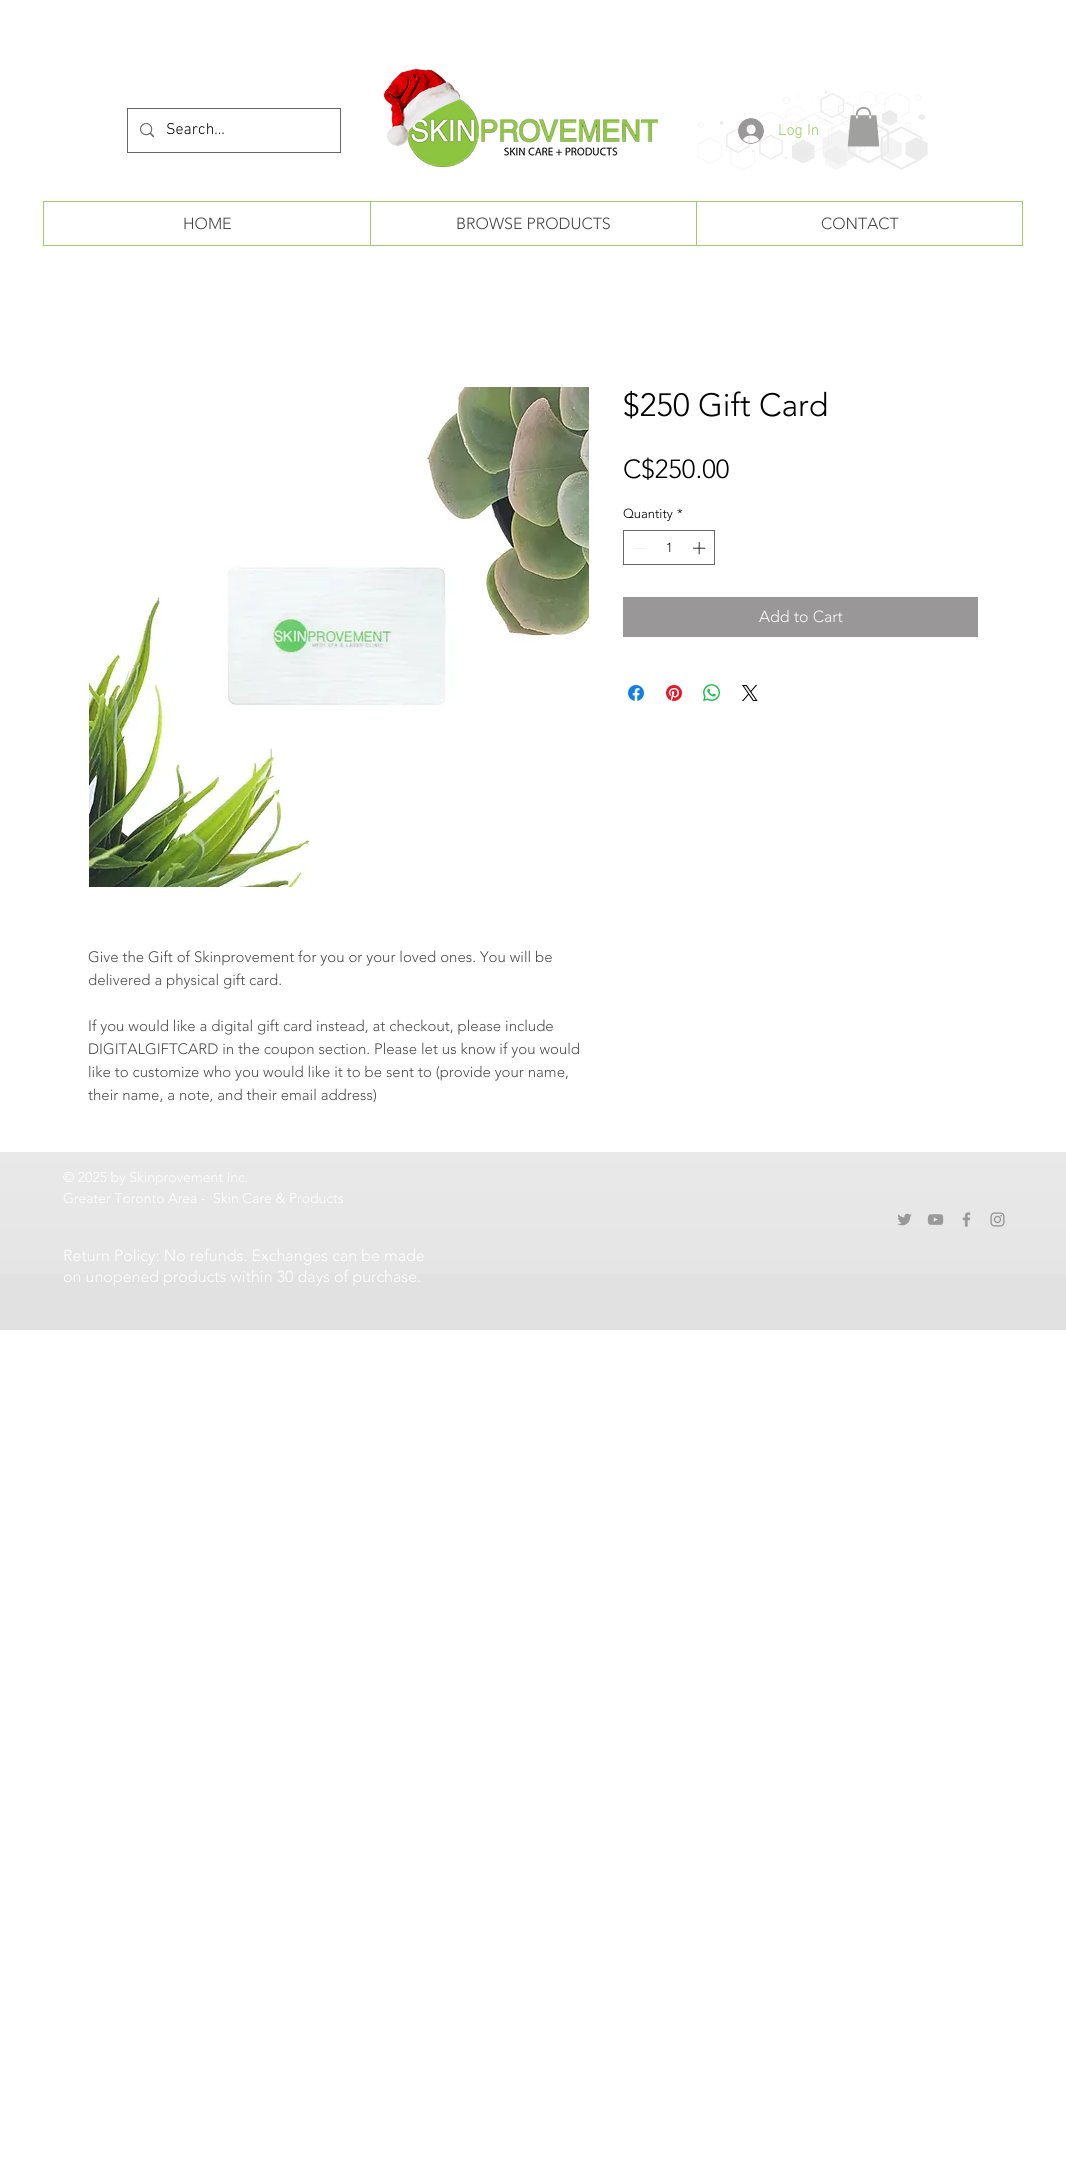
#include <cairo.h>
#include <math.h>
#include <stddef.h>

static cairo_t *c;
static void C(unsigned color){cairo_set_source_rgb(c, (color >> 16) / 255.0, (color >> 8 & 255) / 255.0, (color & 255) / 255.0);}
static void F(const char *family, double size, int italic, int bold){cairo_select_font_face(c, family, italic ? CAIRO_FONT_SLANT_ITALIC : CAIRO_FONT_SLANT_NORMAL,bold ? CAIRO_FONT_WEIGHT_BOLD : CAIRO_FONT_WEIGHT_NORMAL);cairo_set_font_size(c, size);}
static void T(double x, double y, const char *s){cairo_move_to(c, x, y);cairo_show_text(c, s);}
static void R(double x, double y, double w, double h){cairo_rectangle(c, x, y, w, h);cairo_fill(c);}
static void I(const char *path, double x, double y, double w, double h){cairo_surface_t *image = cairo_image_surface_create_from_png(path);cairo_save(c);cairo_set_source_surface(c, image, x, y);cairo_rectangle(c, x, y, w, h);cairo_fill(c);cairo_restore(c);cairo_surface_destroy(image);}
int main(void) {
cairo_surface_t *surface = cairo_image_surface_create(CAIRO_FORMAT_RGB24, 1066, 2167);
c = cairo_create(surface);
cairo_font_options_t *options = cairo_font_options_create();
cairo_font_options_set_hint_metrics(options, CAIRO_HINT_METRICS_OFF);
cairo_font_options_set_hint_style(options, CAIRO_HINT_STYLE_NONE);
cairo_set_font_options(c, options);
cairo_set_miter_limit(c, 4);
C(0xffffff);
cairo_paint(c);
I("4.png",407,98,251,69);
I("1.png",383,68,78,78);
I("2.png",697,91,231,79);
cairo_rectangle(c,127.5,108.5,213,44);
C(0x666666);
cairo_set_line_width(c,1);
cairo_stroke(c);
I("3.png",140,123,14,15);
F("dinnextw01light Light",16,0,0);
C(0x000000);
T(166,134,"Search...");
I("5.png",738,118,26,26);
C(0xa0cc62);
T(778,135,"Log In");
I("6.png",847,107,33,40);
cairo_rectangle(c,43.5,201.5,979,44);
cairo_stroke(c);
F("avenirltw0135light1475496 Light",16,0,0);
C(0x444444);
T(183,229,"HOME");
C(0xa0cc62);
R(370,202,1,43);
C(0x444444);
T(456,229,"BROWSE PRODUCTS");
C(0xa0cc62);
R(696,202,1,43);
C(0x444444);
T(821,229,"CONTACT");
F("avenirltw0135light1475496 Light",32,0,0);
C(0x000000);
T(623,416,"$250 Gift Card");
F("avenirltw0135light1475496 Light",26,0,0);
T(623,478,"C$250.00");
F("avenirltw0135light1475496 Light",13,0,0);
T(623,518,"Quantity");
T(677,518,"*");
cairo_rectangle(c,623.5,530.5,91,34);
C(0x666666);
cairo_stroke(c);
C(0xe3e3e3);
cairo_set_fill_rule(c,CAIRO_FILL_RULE_EVEN_ODD);
cairo_new_path(c);
cairo_move_to(c,646,548);
cairo_line_to(c,646,548.5);
cairo_line_to(c,634,548.5);
cairo_line_to(c,634,548);
cairo_close_path(c);
cairo_fill(c);
C(0x000000);
T(666,552,"1");
I("7.png",693,542,13,13);
C(0x999797);
R(623,597,355,40);
F("avenirltw0135light1475496 Light",16,0,0);
C(0xffffff);
T(759,622,"Add to Cart");
I("8.png",628,685,16,16);
I("9.png",666,685,16,16);
I("10.png",703,684,17,17);
I("11.png",742,685,16,16);
I("12.png",89,387,500,500);
F("avenirltw0135light1475496 Light",15,0,0);
C(0x4c4c4c);
T(88,962,"Give the Gift of Skinprovement for you or your loved ones. You will be");
T(88,985,"delivered a physical gift card.");
T(88,1031,"If you would like a digital gift card instead, at checkout, please include");
T(88,1054,"DIGITALGIFTCARD in the coupon section. Please let us know if you would");
T(88,1077,"like to customize who you would like it to be sent to (provide your name,");
T(88,1100,"their name, a note, and their email address)");
C(0xe1e1e1);
R(0,1152,1066,178);
I("13.png",0,1152,1066,122);
F("avenirltw0135light1475496 Light",14,0,0);
C(0xffffff);
T(63,1182,"© 2025 by Skinprovement Inc.");
T(63,1203,"Greater Toronto Area -");
T(213,1203,"Skin Care & Products");
I("14.png",897,1213,15,13);
I("15.png",927,1214,17,11);
I("16.png",962,1212,9,15);
I("17.png",990,1212,15,15);
F("avenirltw0135light1475496 Light",16,0,0);
T(63,1261,"Return Policy: No refunds. Exchanges can be made");
T(63,1282,"on unopened products within 30 days of purchase.");
cairo_surface_write_to_png(surface, "o.png");
cairo_font_options_destroy(options);
cairo_destroy(c);
cairo_surface_destroy(surface);
return 0;
}
